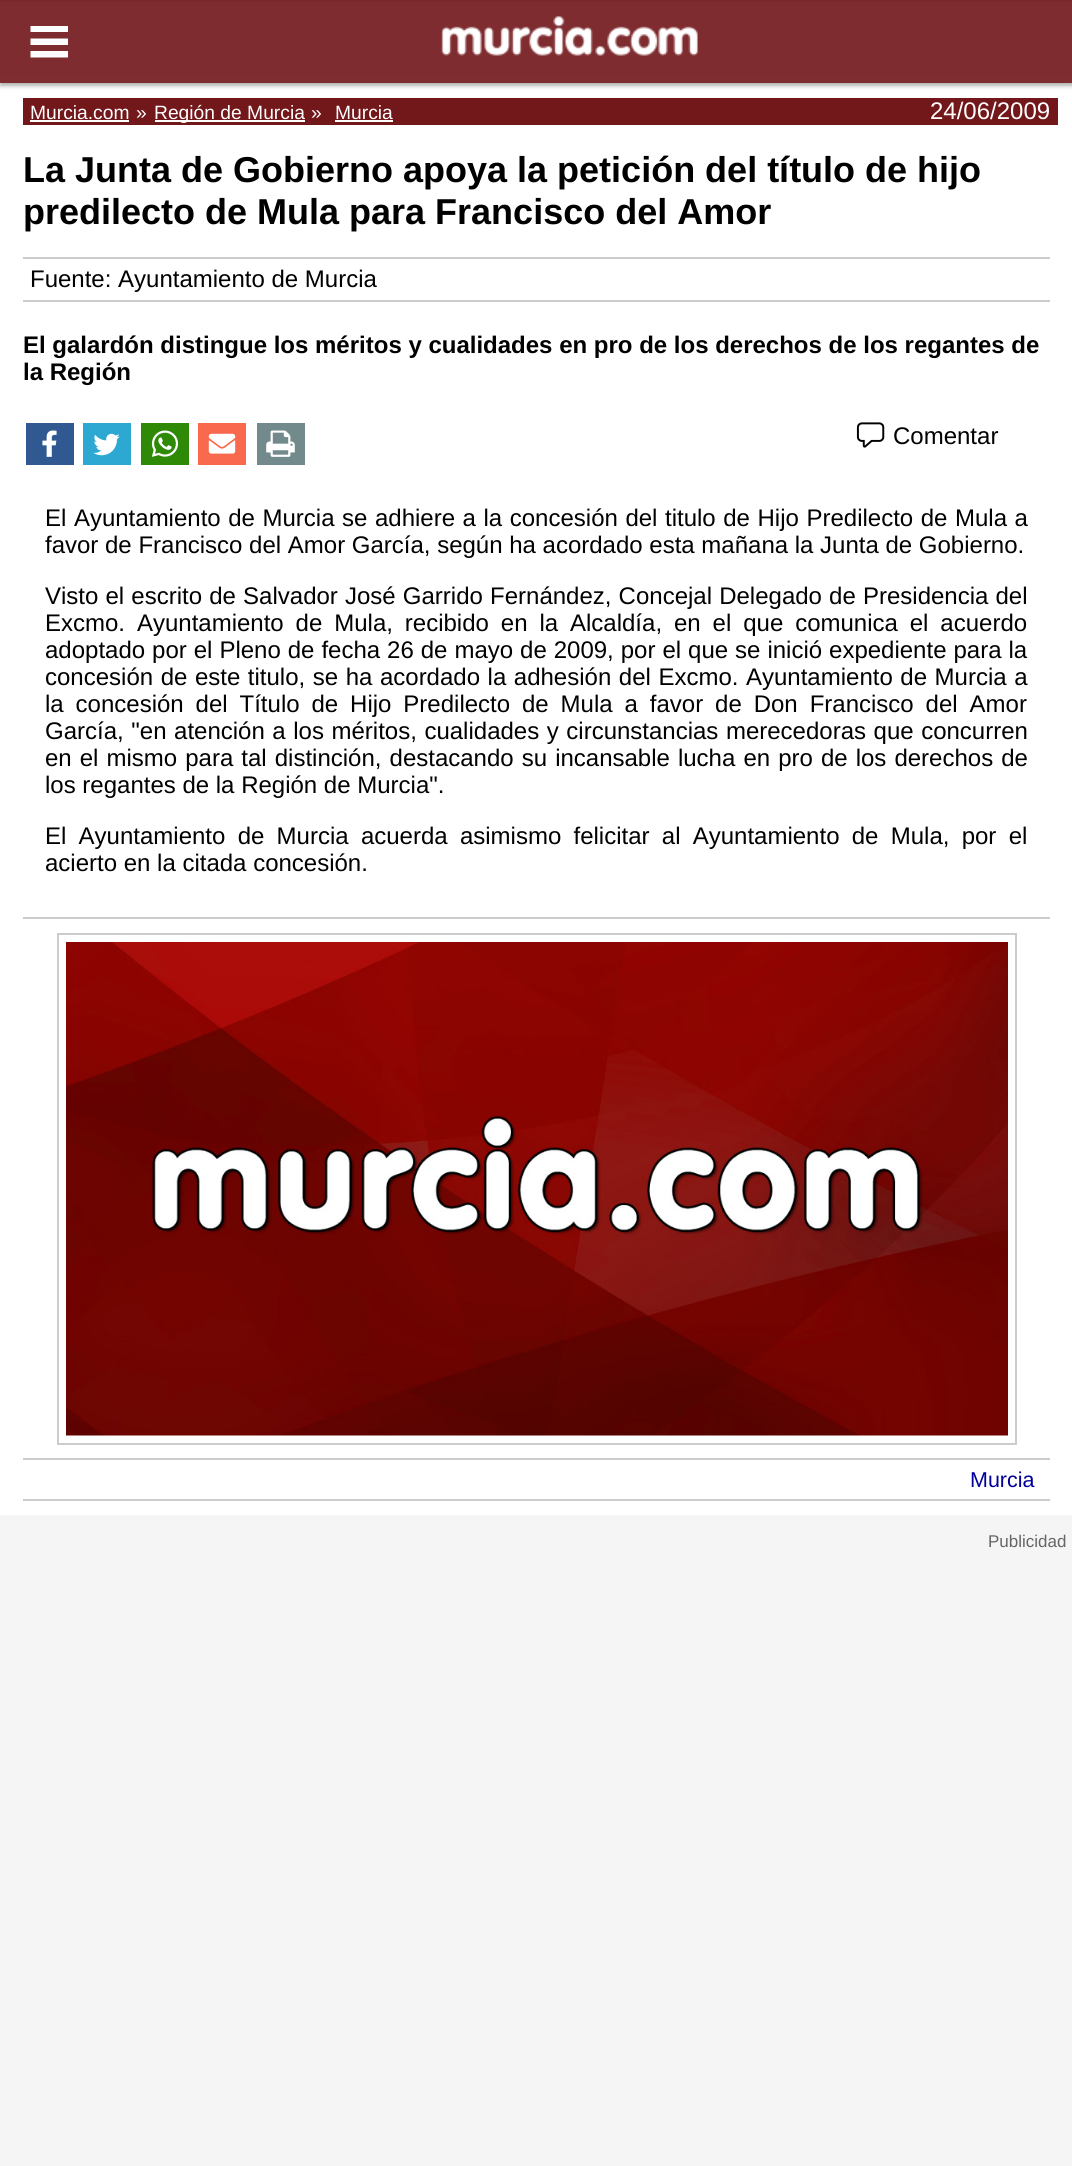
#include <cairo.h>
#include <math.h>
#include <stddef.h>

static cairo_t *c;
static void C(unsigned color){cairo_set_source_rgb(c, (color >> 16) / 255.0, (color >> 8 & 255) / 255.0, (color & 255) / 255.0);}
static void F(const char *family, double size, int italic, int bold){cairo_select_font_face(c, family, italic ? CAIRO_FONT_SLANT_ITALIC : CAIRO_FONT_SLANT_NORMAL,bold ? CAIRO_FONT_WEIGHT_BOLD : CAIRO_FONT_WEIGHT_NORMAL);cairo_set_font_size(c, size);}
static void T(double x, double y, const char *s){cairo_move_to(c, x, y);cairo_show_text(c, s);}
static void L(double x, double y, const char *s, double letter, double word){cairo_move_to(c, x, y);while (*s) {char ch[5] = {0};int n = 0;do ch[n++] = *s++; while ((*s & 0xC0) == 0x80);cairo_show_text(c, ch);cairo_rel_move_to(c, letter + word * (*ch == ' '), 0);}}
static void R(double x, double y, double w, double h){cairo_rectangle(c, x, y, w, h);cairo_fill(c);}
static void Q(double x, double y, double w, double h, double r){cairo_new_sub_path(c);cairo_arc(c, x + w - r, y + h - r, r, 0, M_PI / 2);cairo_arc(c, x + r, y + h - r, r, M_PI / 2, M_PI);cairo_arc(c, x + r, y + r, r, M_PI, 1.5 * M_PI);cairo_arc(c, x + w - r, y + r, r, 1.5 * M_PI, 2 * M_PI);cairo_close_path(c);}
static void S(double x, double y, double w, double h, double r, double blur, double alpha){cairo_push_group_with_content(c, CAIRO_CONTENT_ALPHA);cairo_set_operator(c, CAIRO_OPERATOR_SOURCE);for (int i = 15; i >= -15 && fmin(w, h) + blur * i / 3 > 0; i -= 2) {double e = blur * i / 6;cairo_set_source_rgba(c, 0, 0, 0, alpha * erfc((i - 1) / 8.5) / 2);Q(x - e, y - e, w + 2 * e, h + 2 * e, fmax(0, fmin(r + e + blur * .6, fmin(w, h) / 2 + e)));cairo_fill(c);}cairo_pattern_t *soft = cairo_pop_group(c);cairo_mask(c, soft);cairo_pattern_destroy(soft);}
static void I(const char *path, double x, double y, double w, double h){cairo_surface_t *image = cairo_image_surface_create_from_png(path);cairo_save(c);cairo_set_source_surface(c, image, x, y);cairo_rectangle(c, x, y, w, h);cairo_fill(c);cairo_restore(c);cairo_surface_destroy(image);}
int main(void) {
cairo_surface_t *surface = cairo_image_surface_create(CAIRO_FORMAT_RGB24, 1072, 2166);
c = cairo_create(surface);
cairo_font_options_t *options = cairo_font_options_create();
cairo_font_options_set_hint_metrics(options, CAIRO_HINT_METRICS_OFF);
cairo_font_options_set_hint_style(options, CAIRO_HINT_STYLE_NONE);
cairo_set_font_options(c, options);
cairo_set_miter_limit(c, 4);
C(0xf9f9f9);
cairo_paint(c);
C(0xcccccc);
R(0,0,1072,2);
C(0xffffff);
R(0,75,1072,1440);
cairo_save(c);
cairo_set_fill_rule(c,CAIRO_FILL_RULE_EVEN_ODD);
cairo_new_path(c);
cairo_move_to(c,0,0);
cairo_line_to(c,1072,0);
cairo_line_to(c,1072,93);
cairo_line_to(c,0,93);
cairo_close_path(c);
cairo_move_to(c,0,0);
cairo_line_to(c,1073,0);
cairo_line_to(c,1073,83);
cairo_line_to(c,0,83);
cairo_close_path(c);
cairo_clip(c);
C(0xb3b3b3);
S(0,3,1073,83,0,2,1);
cairo_restore(c);
cairo_set_source_rgba(c,0.447,0.09,0.102,0.9);
R(0,0,1072,83);
I("1.png",441,15,257,41);
C(0xfefefe);
cairo_set_fill_rule(c,CAIRO_FILL_RULE_EVEN_ODD);
cairo_new_path(c);
cairo_move_to(c,68,32);
cairo_line_to(c,30.5,32);
cairo_line_to(c,30.5,26);
cairo_line_to(c,68,26);
cairo_close_path(c);
cairo_move_to(c,68,45);
cairo_line_to(c,30.5,45);
cairo_line_to(c,30.5,38.5);
cairo_line_to(c,68,38.5);
cairo_close_path(c);
cairo_move_to(c,30.5,57.5);
cairo_line_to(c,68,57.5);
cairo_line_to(c,68,51);
cairo_line_to(c,30.5,51);
cairo_close_path(c);
cairo_fill(c);
C(0x72171a);
R(23,98,1035,27);
F("Liberation Sans",19.25,0,0);
C(0xffffff);
T(30,119,"Murcia.com");
R(30,120,99,2);
T(136,119,"»");
R(155,120,150,2);
T(154,119,"Región de Murcia");
T(311,119,"»");
T(335,119,"Murcia");
R(335,120,58,2);
F("Liberation Sans",24,0,0);
T(930,119,"24/06/2009");
F("Liberation Sans",36,0,1);
C(0x000000);
T(23,182,"La Junta de Gobierno apoya la petición del título de hijo");
T(23,224,"predilecto de Mula para Francisco del Amor");
C(0xcccccc);
R(23,257,1027,2);
R(23,300,1027,2);
F("Liberation Sans",24,0,0);
C(0x000000);
T(30,287,"Fuente: Ayuntamiento de Murcia");
F("Liberation Sans",24,0,1);
T(23,353,"El galardón distingue los méritos y cualidades en pro de los derechos de los regantes de");
T(23,380,"la Región");
C(0xcccccc);
R(23,917,1027,2);
C(0x305891);
R(26,423,48,42);
I("2.png",42,430,15,27);
C(0x2ca8d2);
R(83,423,48,42);
I("3.png",93,433,27,23);
C(0x2e8a06);
R(141,423,48,42);
I("4.png",151,430,28,27);
C(0xf8694d);
R(198,423,48,42);
I("5.png",208,433,28,21);
C(0x738a8d);
R(257,423,48,42);
I("6.png",266,430,29,27);
I("7.png",856,422,29,26);
F("Liberation Sans",24,0,0);
C(0x000000);
T(893,444,"Comentar");
L(45,526,"El Ayuntamiento de Murcia se adhiere a la concesión del titulo de Hijo Predilecto de Mula a",0,.9);
T(45,553,"favor de Francisco del Amor García, según ha acordado esta mañana la Junta de Gobierno.");
L(45,604,"Visto el escrito de Salvador José Garrido Fernández, Concejal Delegado de Presidencia del",0,.5);
L(45,631,"Excmo. Ayuntamiento de Mula, recibido en la Alcaldía, en el que comunica el acuerdo",0,5.25);
L(45,658,"adoptado por el Pleno de fecha 26 de mayo de 2009, por el que se inició expediente para la",0,.3);
L(45,685,"concesión de este titulo, se ha acordado la adhesión del Excmo. Ayuntamiento de Murcia a",0,.9);
L(45,712,"la concesión del Título de Hijo Predilecto de Mula a favor de Don Francisco del Amor",0,5.25);
L(45,739,"García, \"en atención a los méritos, cualidades y circunstancias merecedoras que concurren",0,.9);
L(45,766,"en el mismo para tal distinción, destacando su incansable lucha en pro de los derechos de",0,1.4);
T(45,793,"los regantes de la Región de Murcia\".");
L(45,844,"El Ayuntamiento de Murcia acuerda asimismo felicitar al Ayuntamiento de Mula, por el",0,5.6);
T(45,871,"acierto en la citada concesión.");
cairo_rectangle(c,58,934,958,510);
C(0xcccccc);
cairo_stroke(c);
I("8.png",66,942,942,494);
R(23,1458,1027,2);
R(23,1499,1027,2);
F("Liberation Sans",21.5,0,0);
C(0x000099);
T(970,1487,"Murcia");
C(0xf5f5f5);
R(0,1515,1072,651);
F("Liberation Sans",17,0,0);
C(0x666666);
T(988,1547,"Publicidad");
cairo_surface_write_to_png(surface, "o.png");
cairo_font_options_destroy(options);
cairo_destroy(c);
cairo_surface_destroy(surface);
return 0;
}
